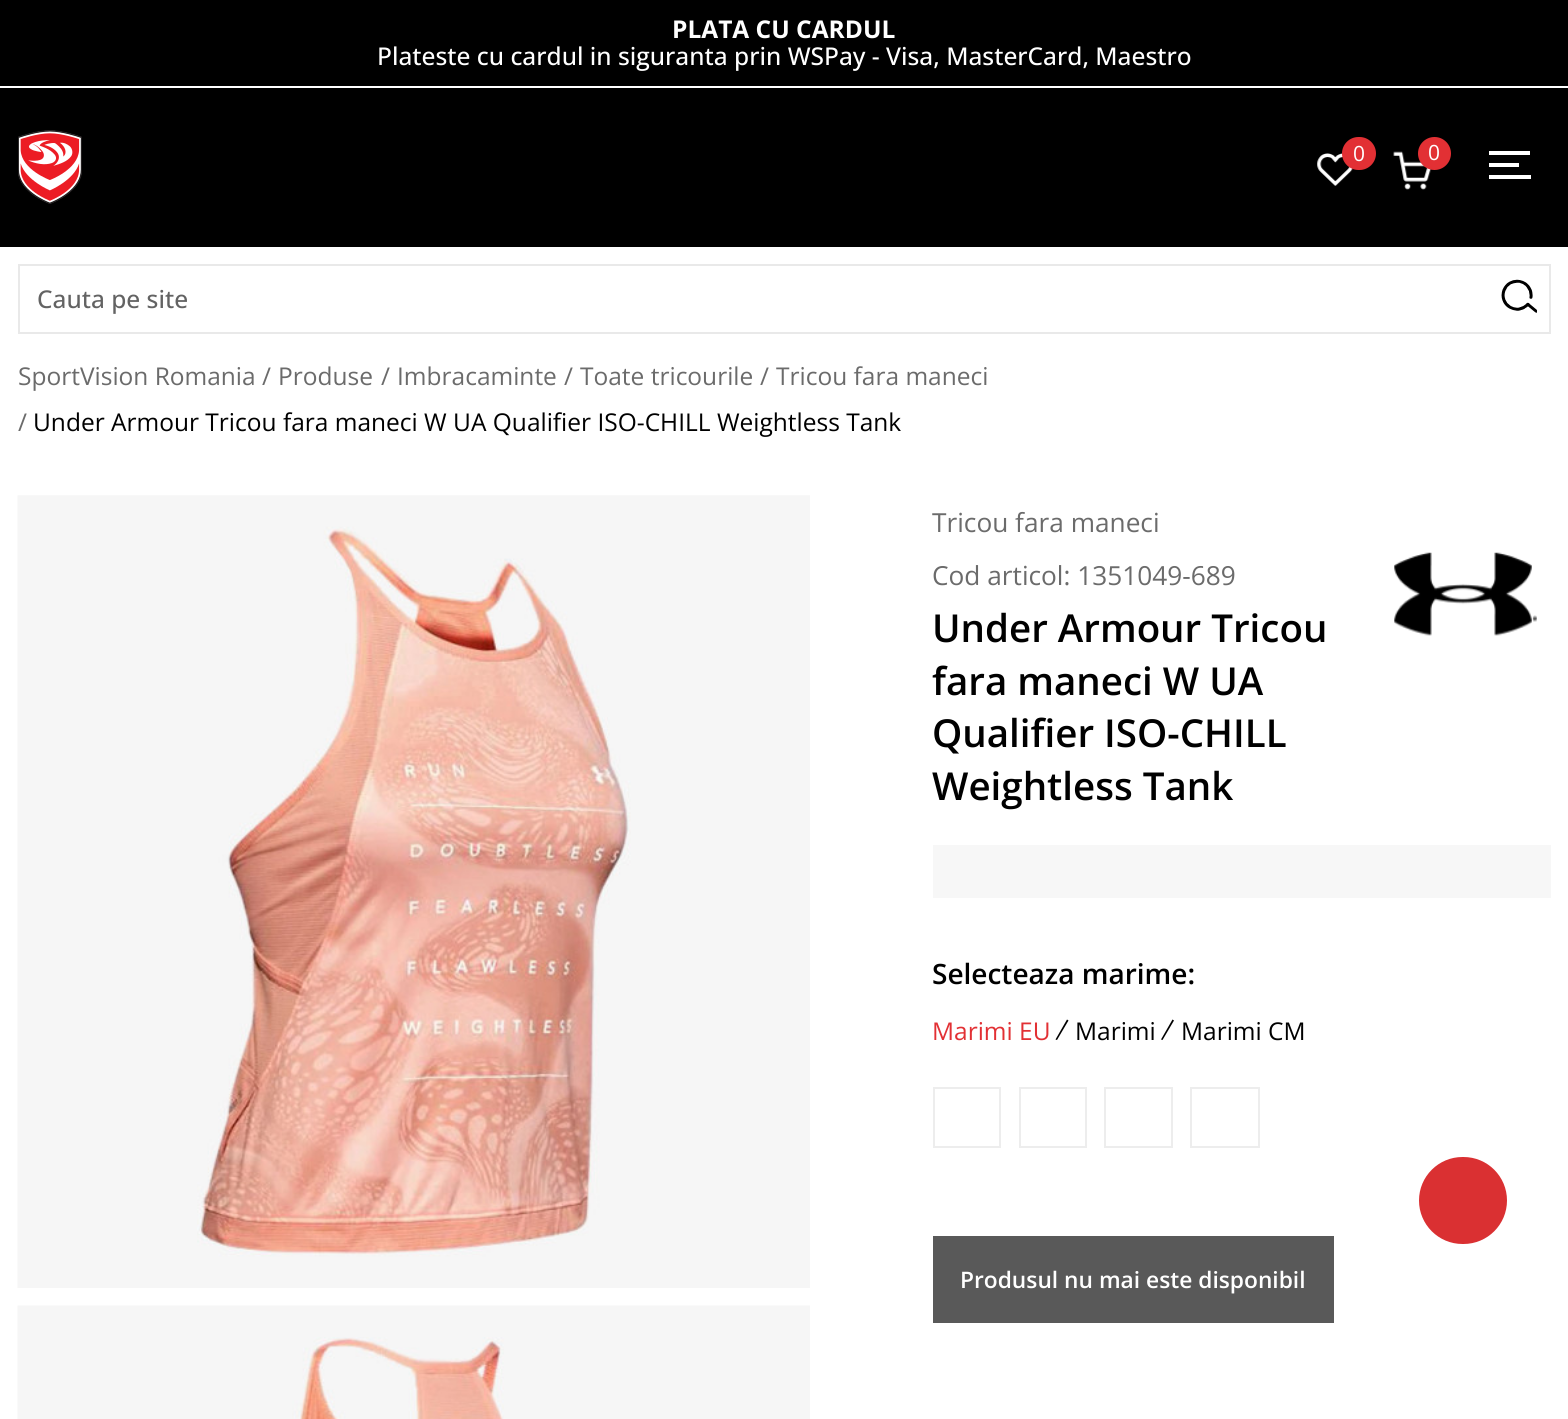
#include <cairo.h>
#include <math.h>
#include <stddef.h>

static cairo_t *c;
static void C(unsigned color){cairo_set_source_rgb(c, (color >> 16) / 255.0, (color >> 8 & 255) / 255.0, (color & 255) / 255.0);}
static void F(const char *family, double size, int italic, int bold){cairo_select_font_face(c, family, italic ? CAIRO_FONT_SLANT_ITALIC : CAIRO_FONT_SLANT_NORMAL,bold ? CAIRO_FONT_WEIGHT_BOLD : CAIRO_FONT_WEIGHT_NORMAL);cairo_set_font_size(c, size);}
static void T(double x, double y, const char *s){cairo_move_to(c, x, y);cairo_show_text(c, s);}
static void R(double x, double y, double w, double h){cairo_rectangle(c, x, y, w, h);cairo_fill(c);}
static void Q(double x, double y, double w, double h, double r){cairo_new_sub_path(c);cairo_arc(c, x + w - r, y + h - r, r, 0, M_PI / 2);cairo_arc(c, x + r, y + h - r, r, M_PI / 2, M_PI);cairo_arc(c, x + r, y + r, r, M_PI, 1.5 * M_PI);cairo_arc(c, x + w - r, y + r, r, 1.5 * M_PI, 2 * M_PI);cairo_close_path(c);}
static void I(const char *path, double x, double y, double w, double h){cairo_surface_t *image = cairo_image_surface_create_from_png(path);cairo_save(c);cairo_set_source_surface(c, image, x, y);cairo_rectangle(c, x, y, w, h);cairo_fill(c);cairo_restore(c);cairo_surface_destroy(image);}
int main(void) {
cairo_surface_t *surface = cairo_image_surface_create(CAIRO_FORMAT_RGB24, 1568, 1419);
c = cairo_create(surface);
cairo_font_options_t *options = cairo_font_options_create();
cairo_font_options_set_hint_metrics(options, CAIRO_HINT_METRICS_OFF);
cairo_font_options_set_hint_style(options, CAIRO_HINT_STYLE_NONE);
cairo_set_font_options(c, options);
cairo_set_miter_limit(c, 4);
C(0xffffff);
cairo_paint(c);
C(0x000000);
R(0,88,1568,159);
R(0,0,1568,86);
F("Open Sans",24.5,0,1);
C(0xffffff);
T(672,38,"PLATA CU CARDUL");
F("Open Sans Medium",24.5,0,0);
T(377,65,"Plateste cu cardul in siguranta prin WSPay - Visa, MasterCard, Maestro");
I("1.png",18,130,64,74);
I("2.png",1317,153,36,33);
C(0xe23034);
Q(1342,137,34,33,16.5);
cairo_fill(c);
F("Open Sans",21,0,0);
C(0xffffff);
T(1353,161,"0");
I("3.png",1393,151,39,39);
C(0xe23034);
cairo_arc(c,1434.5,153.5,16.5,0,2 * M_PI);
cairo_fill(c);
C(0xffffff);
T(1428,160,"0");
R(1489,163,30,4);
R(1489,151,41,4);
R(1489,175,42,4);
cairo_rectangle(c,19,265,1531,68);
C(0xe9e9e9);
cairo_stroke(c);
F("Open Sans Medium",24.5,0,0);
C(0x636363);
T(37,308,"Cauta pe site");
I("4.png",1501,279,36,34);
F("Open Sans",24.5,0,0);
C(0x6b6b6b);
T(18,385,"SportVision Romania");
T(262,385,"/");
T(278,385,"Produse");
T(381,385,"/");
T(397,385,"Imbracaminte");
T(564,385,"/");
T(580,385,"Toate tricourile");
T(760,385,"/");
T(776,385,"Tricou fara maneci");
T(18,431,"/");
C(0x000000);
T(33,431,"Under Armour Tricou fara maneci W UA Qualifier ISO-CHILL Weightless Tank");
I("5.png",17,495,793,793);
I("6.png",17,1305,793,114);
F("Open Sans",26.25,0,0);
C(0x6b6b6b);
T(932,532,"Tricou fara maneci");
T(932,585,"Cod articol: 1351049-689");
I("7.png",1394,552,143,84);
F("Open Sans SemiBold",38.5,0,0);
C(0x000000);
T(932,642,"Under Armour Tricou");
T(932,695,"fara maneci W UA");
T(932,747,"Qualifier ISO-CHILL");
T(932,800,"Weightless Tank");
C(0xf7f7f7);
R(933,845,618,53);
F("Open Sans SemiBold",28,0,0);
C(0x000000);
T(932,984,"Selecteaza marime:");
F("Open Sans",24.5,0,0);
C(0xe23034);
T(932,1040,"Marimi EU");
C(0x000000);
cairo_new_path(c);
cairo_move_to(c,1067,1019.5);
cairo_line_to(c,1068.5,1020.5);
cairo_line_to(c,1057,1040);
cairo_line_to(c,1055.5,1039.5);
cairo_close_path(c);
cairo_fill(c);
T(1075,1040,"Marimi");
cairo_new_path(c);
cairo_move_to(c,1172.5,1019.5);
cairo_line_to(c,1174,1020.5);
cairo_line_to(c,1162.5,1040);
cairo_line_to(c,1161,1039.5);
cairo_close_path(c);
cairo_fill(c);
T(1181,1040,"Marimi CM");
cairo_rectangle(c,934,1088,66,59);
C(0xededed);
cairo_stroke(c);
cairo_rectangle(c,1020,1088,66,59);
cairo_stroke(c);
cairo_rectangle(c,1105,1088,67,59);
cairo_stroke(c);
cairo_rectangle(c,1191,1088,68,59);
cairo_stroke(c);
C(0x595959);
R(933,1236,401,87);
F("Open Sans SemiBold",22.75,0,0);
C(0xffffff);
T(960,1288,"Produsul nu mai este disponibil");
C(0xda3032);
Q(1419,1157,88,87,43.5);
cairo_fill(c);
cairo_surface_write_to_png(surface, "o.png");
cairo_font_options_destroy(options);
cairo_destroy(c);
cairo_surface_destroy(surface);
return 0;
}
